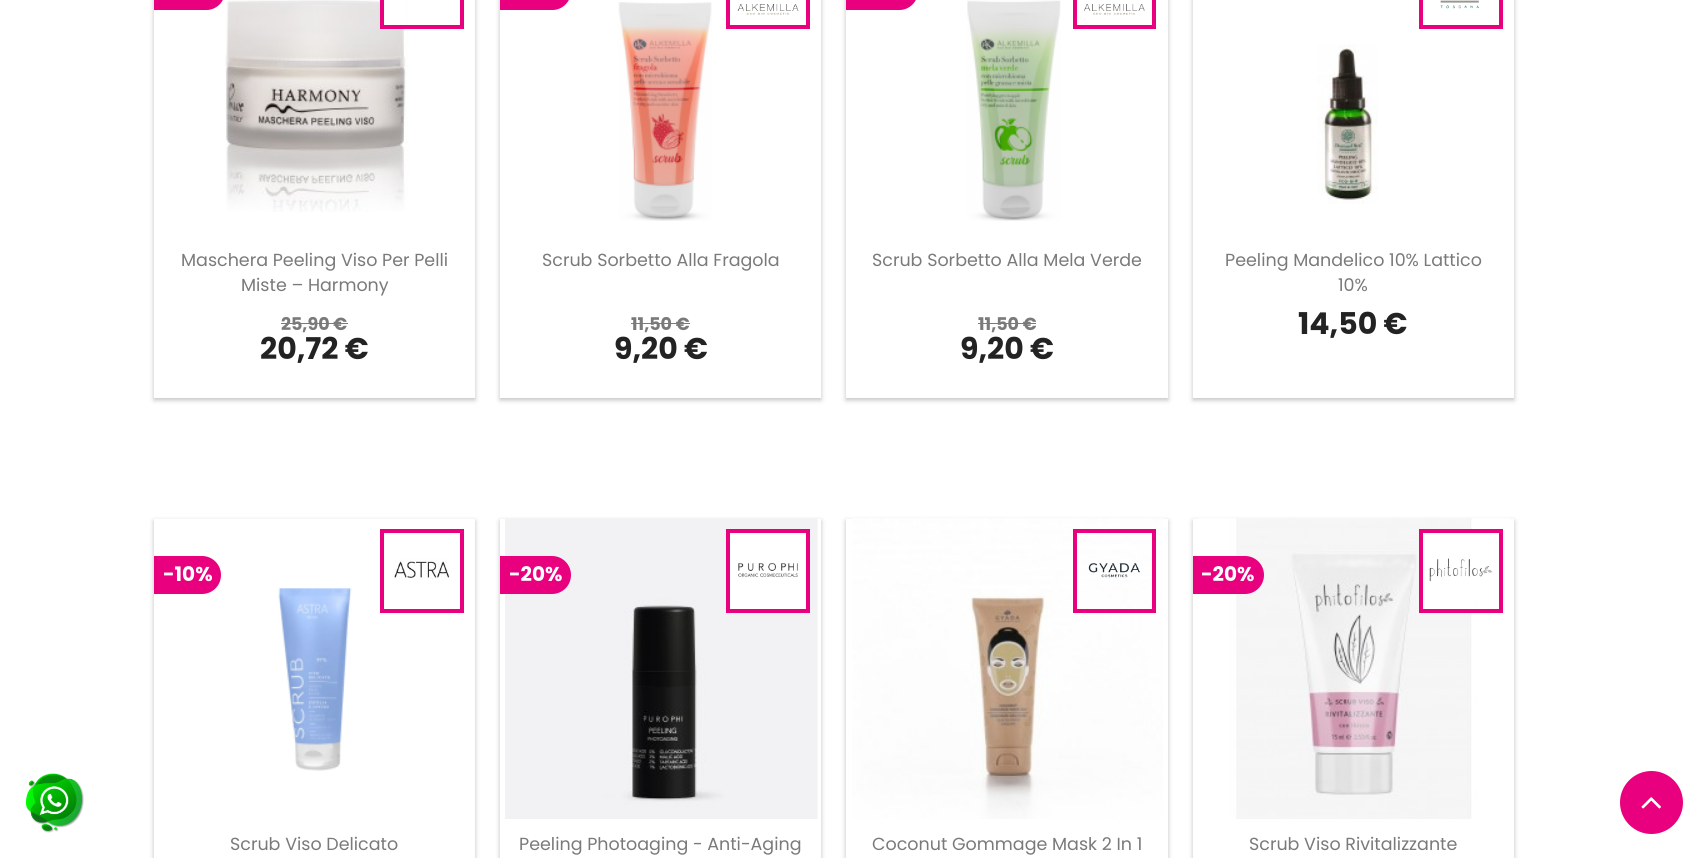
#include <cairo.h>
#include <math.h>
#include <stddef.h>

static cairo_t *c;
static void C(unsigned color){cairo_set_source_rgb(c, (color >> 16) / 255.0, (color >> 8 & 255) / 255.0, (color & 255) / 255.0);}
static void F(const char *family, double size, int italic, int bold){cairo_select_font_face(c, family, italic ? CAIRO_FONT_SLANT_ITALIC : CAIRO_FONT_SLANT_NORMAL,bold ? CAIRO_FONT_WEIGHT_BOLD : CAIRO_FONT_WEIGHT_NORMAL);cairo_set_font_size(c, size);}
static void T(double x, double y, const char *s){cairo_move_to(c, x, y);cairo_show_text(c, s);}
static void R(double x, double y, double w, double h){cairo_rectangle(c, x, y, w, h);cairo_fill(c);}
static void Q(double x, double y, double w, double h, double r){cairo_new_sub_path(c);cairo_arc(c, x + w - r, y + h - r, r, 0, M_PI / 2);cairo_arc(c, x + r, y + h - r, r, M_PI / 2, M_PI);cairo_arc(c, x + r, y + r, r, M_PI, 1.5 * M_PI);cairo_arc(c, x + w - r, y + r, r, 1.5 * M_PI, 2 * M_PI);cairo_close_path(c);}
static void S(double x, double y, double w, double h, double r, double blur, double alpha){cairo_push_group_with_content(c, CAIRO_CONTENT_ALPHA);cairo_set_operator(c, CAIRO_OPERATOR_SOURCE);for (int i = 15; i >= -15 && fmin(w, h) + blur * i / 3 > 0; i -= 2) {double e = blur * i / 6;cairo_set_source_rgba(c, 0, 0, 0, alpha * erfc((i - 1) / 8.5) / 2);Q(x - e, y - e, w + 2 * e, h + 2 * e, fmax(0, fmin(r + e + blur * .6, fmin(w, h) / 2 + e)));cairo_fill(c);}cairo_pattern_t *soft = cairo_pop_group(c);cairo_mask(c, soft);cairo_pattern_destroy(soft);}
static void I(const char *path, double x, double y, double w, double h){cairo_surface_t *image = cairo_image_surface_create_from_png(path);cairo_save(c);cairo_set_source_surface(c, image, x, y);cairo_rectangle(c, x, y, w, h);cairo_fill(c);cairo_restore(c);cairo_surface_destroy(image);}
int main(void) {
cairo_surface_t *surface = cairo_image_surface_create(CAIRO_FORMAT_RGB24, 1707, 858);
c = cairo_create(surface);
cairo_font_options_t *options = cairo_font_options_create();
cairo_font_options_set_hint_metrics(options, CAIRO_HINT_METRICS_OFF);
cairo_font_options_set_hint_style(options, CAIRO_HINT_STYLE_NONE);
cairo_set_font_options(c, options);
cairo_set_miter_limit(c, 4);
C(0xffffff);
cairo_paint(c);
C(0x000000);
S(154,-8,321,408,0,2.5,.25);
C(0xffffff);
R(154,0,321,398);
I("1.png",225,0,184,212);
R(384,0,22,25);
cairo_rectangle(c,382,-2,80,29);
C(0xe8007e);
cairo_set_line_width(c,4);
cairo_stroke(c);
F("Poppins",17.5,0,0);
C(0x7a7a7a);
T(181,266,"Maschera Peeling Viso Per Pelli");
T(241,291,"Miste – Harmony");
C(0xe8007e);
cairo_new_path(c);
cairo_move_to(c,154,-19);
cairo_line_to(c,206.5,-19);
cairo_curve_to(c,216.5,-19,225,-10.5,225,-.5);
cairo_line_to(c,225,-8.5);
cairo_curve_to(c,225,1.5,216.5,10,206.5,10);
cairo_line_to(c,154,10);
cairo_close_path(c);
cairo_fill(c);
F("Poppins",17.5,0,1);
C(0x7a7a7a);
T(281,330,"25,90 €");
R(281,323,67,1);
F("Poppins",30,0,1);
C(0x232323);
T(260,359,"20,72 €");
C(0x000000);
S(500,-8,321,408,0,2.5,.25);
C(0xffffff);
R(500,0,321,398);
cairo_rectangle(c,728,-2,80,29);
C(0xe8007e);
cairo_stroke(c);
I("2.png",737,4,62,11);
I("3.png",618,2,94,219);
F("Poppins",17.5,0,0);
C(0x7a7a7a);
T(542,266,"Scrub Sorbetto Alla Fragola");
C(0xe8007e);
cairo_new_path(c);
cairo_move_to(c,500,-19);
cairo_line_to(c,552.5,-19);
cairo_curve_to(c,562.5,-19,571,-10.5,571,-.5);
cairo_line_to(c,571,-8.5);
cairo_curve_to(c,571,1.5,562.5,10,552.5,10);
cairo_line_to(c,500,10);
cairo_close_path(c);
cairo_fill(c);
F("Poppins",17.5,0,1);
C(0x7a7a7a);
T(631,330,"11,50 €");
R(631,323,59,1);
F("Poppins",30,0,1);
C(0x232323);
T(614,359,"9,20 €");
C(0x000000);
S(846,-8,322,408,0,2.5,.25);
C(0xffffff);
R(846,0,322,398);
cairo_rectangle(c,1075,-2,79,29);
C(0xe8007e);
cairo_stroke(c);
I("4.png",1084,4,61,11);
I("5.png",967,0,94,221);
F("Poppins",17.5,0,0);
C(0x7a7a7a);
T(872,266,"Scrub Sorbetto Alla Mela Verde");
C(0xe8007e);
cairo_new_path(c);
cairo_move_to(c,846,-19);
cairo_line_to(c,899.5,-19);
cairo_curve_to(c,909.5,-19,918,-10.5,918,-.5);
cairo_line_to(c,918,-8.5);
cairo_curve_to(c,918,1.5,909.5,10,899.5,10);
cairo_line_to(c,846,10);
cairo_close_path(c);
cairo_fill(c);
F("Poppins",17.5,0,1);
C(0x7a7a7a);
T(978,330,"11,50 €");
R(978,323,58,1);
F("Poppins",30,0,1);
C(0x232323);
T(960,359,"9,20 €");
C(0x000000);
S(1193,-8,321,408,0,2.5,.25);
C(0xffffff);
R(1193,0,321,398);
cairo_rectangle(c,1421,-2,80,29);
C(0xe8007e);
cairo_stroke(c);
I("6.png",1440,0,39,9);
I("7.png",1317,44,61,160);
F("Poppins",17.5,0,0);
C(0x7a7a7a);
T(1225,266,"Peeling Mandelico 10% Lattico");
T(1338,291,"10%");
F("Poppins",30,0,1);
C(0x232323);
T(1298,334,"14,50 €");
cairo_save(c);
cairo_set_fill_rule(c,CAIRO_FILL_RULE_EVEN_ODD);
cairo_new_path(c);
cairo_move_to(c,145,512);
cairo_line_to(c,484,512);
cairo_line_to(c,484,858);
cairo_line_to(c,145,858);
cairo_close_path(c);
cairo_move_to(c,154,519);
cairo_line_to(c,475,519);
cairo_line_to(c,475,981);
cairo_line_to(c,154,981);
cairo_close_path(c);
cairo_clip(c);
C(0x000000);
S(154,521,321,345,0,2.5,.25);
cairo_restore(c);
cairo_rectangle(c,382,531,80,80);
C(0xe8007e);
cairo_stroke(c);
cairo_new_path(c);
cairo_move_to(c,154,556);
cairo_line_to(c,202,556);
cairo_curve_to(c,212.5,556,221,564.5,221,575);
cairo_curve_to(c,221,585.5,212.5,594,202,594);
cairo_line_to(c,154,594);
cairo_close_path(c);
cairo_fill(c);
F("Poppins",20,0,1);
C(0xffffff);
T(163,581,"-10%");
F("Poppins",17.5,0,0);
C(0x7a7a7a);
T(230,850,"Scrub Viso Delicato");
I("8.png",278,588,74,183);
I("9.png",394,559,56,21);
cairo_save(c);
cairo_set_fill_rule(c,CAIRO_FILL_RULE_EVEN_ODD);
cairo_new_path(c);
cairo_move_to(c,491,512);
cairo_line_to(c,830,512);
cairo_line_to(c,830,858);
cairo_line_to(c,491,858);
cairo_close_path(c);
cairo_move_to(c,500,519);
cairo_line_to(c,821,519);
cairo_line_to(c,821,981);
cairo_line_to(c,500,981);
cairo_close_path(c);
cairo_clip(c);
C(0x000000);
S(500,521,321,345,0,2.5,.25);
cairo_restore(c);
I("11.png",505,518,313,301);
C(0xffffff);
cairo_rectangle(c,728,531,80,80);
cairo_fill_preserve(c);
C(0xe8007e);
cairo_stroke(c);
I("10.png",738,563,60,15);
cairo_new_path(c);
cairo_move_to(c,500,556);
cairo_line_to(c,552,556);
cairo_curve_to(c,562.5,556,571,564.5,571,575);
cairo_curve_to(c,571,585.5,562.5,594,552,594);
cairo_line_to(c,500,594);
cairo_close_path(c);
cairo_fill(c);
F("Poppins",20,0,1);
C(0xffffff);
T(509,581,"-20%");
F("Poppins",17.5,0,0);
C(0x7a7a7a);
T(519,850,"Peeling Photoaging - Anti-Aging");
C(0x000000);
S(846,521,322,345,0,2.5,.25);
C(0xffffff);
R(846,519,322,339);
I("13.png",852,518,311,301);
cairo_rectangle(c,1075,531,79,80);
C(0xe8007e);
cairo_stroke(c);
I("12.png",1088,563,52,15);
C(0x7a7a7a);
T(872,850,"Coconut Gommage Mask 2 In 1");
C(0x000000);
S(1193,521,321,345,0,2.5,.25);
C(0xffffff);
R(1193,519,321,339);
I("14.png",1198,518,312,301);
R(1423,533,49,76);
cairo_rectangle(c,1421,531,80,80);
C(0xe8007e);
cairo_stroke(c);
cairo_new_path(c);
cairo_move_to(c,1193,556);
cairo_line_to(c,1245,556);
cairo_curve_to(c,1255.5,556,1264,564.5,1264,575);
cairo_curve_to(c,1264,585.5,1255.5,594,1245,594);
cairo_line_to(c,1193,594);
cairo_close_path(c);
cairo_fill(c);
F("Poppins",20,0,1);
C(0xffffff);
T(1201,581,"-20%");
F("Poppins",17.5,0,0);
C(0x7a7a7a);
T(1249,850,"Scrub Viso Rivitalizzante");
I("15.png",1429,558,63,24);
I("16.png",25,773,59,60);
C(0xe8007e);
cairo_arc(c,1651.5,802.5,31.5,0,2 * M_PI);
cairo_fill(c);
I("17.png",1641,797,20,12);
cairo_surface_write_to_png(surface, "o.png");
cairo_font_options_destroy(options);
cairo_destroy(c);
cairo_surface_destroy(surface);
return 0;
}
